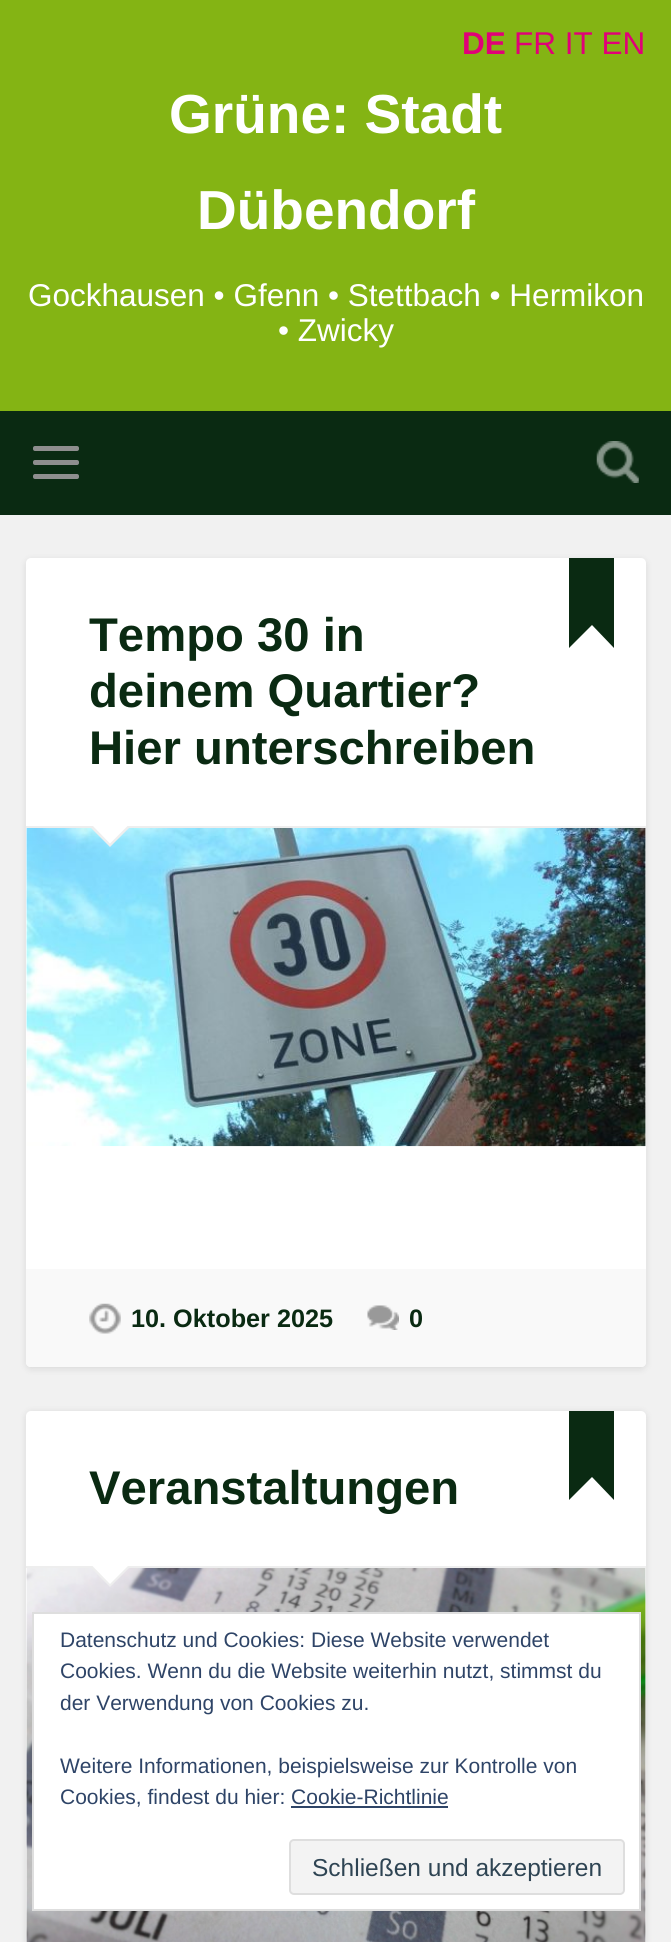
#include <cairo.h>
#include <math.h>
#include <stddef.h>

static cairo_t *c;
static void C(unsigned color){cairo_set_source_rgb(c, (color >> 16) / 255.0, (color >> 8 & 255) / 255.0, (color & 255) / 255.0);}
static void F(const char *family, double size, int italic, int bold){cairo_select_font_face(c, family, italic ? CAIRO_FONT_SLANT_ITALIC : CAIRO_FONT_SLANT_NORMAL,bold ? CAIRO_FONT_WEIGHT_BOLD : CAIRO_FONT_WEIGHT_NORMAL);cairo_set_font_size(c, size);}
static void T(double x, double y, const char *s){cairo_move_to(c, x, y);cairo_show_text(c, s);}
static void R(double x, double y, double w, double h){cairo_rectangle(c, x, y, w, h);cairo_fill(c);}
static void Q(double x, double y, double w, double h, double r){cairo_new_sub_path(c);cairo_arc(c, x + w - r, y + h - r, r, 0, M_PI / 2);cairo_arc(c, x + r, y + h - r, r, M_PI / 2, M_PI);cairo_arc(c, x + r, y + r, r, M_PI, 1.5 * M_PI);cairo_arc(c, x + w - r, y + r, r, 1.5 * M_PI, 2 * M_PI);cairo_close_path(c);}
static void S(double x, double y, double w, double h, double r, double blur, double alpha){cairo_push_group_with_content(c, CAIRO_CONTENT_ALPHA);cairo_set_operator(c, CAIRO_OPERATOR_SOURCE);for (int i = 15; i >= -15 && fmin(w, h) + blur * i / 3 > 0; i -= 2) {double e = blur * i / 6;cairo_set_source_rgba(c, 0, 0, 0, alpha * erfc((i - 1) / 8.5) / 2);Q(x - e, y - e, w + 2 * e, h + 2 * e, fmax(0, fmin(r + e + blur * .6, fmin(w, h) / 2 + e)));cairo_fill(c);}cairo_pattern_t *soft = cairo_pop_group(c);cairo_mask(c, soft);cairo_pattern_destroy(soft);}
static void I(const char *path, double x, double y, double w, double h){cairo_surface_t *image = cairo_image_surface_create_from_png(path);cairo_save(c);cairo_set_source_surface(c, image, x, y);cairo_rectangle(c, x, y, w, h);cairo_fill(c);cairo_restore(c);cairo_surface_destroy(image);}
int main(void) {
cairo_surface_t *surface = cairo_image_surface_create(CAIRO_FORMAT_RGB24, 671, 1942);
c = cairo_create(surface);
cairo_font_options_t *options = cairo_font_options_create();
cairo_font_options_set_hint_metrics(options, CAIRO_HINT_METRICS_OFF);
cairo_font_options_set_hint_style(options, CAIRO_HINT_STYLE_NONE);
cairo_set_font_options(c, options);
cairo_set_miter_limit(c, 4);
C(0xf1f1f1);
cairo_paint(c);
C(0x84b414);
R(0,0,671,411);
F("Liberation Sans",31.5,0,1);
C(0xe10078);
T(462,54,"DE");
F("Liberation Sans",31.5,0,0);
T(514,54,"FR IT EN");
F("Liberation Sans",55,0,1);
C(0xffffff);
T(169,133,"Grüne: Stadt");
T(197,229,"Dübendorf");
F("Liberation Sans",31.5,0,0);
T(28,306,"Gockhausen • Gfenn • Stettbach • Hermikon");
T(278,341,"• Zwicky");
C(0x0a2a12);
R(0,411,671,104);
C(0x8e8e8e);
Q(33,446,46,5,2);
cairo_fill(c);
Q(33,460,46,5,2);
cairo_fill(c);
Q(33,474,46,5,2);
cairo_fill(c);
I("1.png",596,441,43,42);
C(0x000000);
S(26,560,620,809,5,3.5,.1);
C(0xffffff);
Q(26,558,620,809,5);
cairo_fill(c);
C(0xeeeeee);
R(26,826,620,2);
C(0x0a2a12);
R(569,558,45,67);
cairo_new_path(c);
cairo_move_to(c,614,602);
cairo_line_to(c,614,648);
cairo_line_to(c,592,625);
cairo_close_path(c);
cairo_move_to(c,569,648);
cairo_line_to(c,569,602);
cairo_line_to(c,592,625);
cairo_close_path(c);
cairo_fill(c);
F("Liberation Sans",47.25,0,1);
T(89,651,"Tempo 30 in");
T(89,707,"deinem Quartier?");
T(89,764,"Hier unterschreiben");
I("2.png",26,828,620,319);
C(0xeeeeee);
cairo_new_path(c);
cairo_move_to(c,89,826);
cairo_line_to(c,131,826);
cairo_line_to(c,110,847);
cairo_close_path(c);
cairo_fill(c);
C(0xffffff);
cairo_new_path(c);
cairo_move_to(c,91,824);
cairo_line_to(c,129.5,824);
cairo_line_to(c,110,843.5);
cairo_close_path(c);
cairo_fill(c);
C(0xf9f9f9);
cairo_new_path(c);
cairo_move_to(c,26,1269);
cairo_line_to(c,646,1269);
cairo_line_to(c,646,1362);
cairo_curve_to(c,646,1365,644,1367,641,1367);
cairo_line_to(c,31,1367);
cairo_curve_to(c,28,1367,26,1365,26,1362);
cairo_close_path(c);
cairo_fill(c);
I("3.png",89,1303,32,31);
F("Liberation Sans",25.25,0,1);
C(0x0a2a12);
T(131,1327,"10. Oktober 2025");
I("4.png",367,1305,32,25);
T(409,1327,"0");
C(0x000000);
S(26,1412,620,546,5,3.5,.1);
C(0xffffff);
Q(26,1411,620,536,5);
cairo_fill(c);
C(0xeeeeee);
R(26,1566,620,2);
F("Liberation Sans",47.25,0,1);
C(0x0a2a12);
T(89,1504,"Veranstaltungen");
R(569,1411,45,66);
cairo_new_path(c);
cairo_move_to(c,614,1454);
cairo_line_to(c,614,1500);
cairo_line_to(c,592,1477);
cairo_close_path(c);
cairo_move_to(c,569,1500);
cairo_line_to(c,569,1454);
cairo_line_to(c,592,1477);
cairo_close_path(c);
cairo_fill(c);
I("5.png",26,1568,620,374);
C(0xeeeeee);
cairo_new_path(c);
cairo_move_to(c,89,1566);
cairo_line_to(c,131,1566);
cairo_line_to(c,110,1587);
cairo_close_path(c);
cairo_fill(c);
C(0xffffff);
cairo_new_path(c);
cairo_move_to(c,91,1564.5);
cairo_line_to(c,129.5,1564.5);
cairo_line_to(c,110,1584);
cairo_close_path(c);
cairo_fill(c);
cairo_rectangle(c,33,1613,607,297);
cairo_fill_preserve(c);
C(0xdedede);
cairo_stroke(c);
F("Liberation Sans",21,0,0);
C(0x2e4467);
T(60,1647,"Datenschutz und Cookies: Diese Website verwendet");
T(60,1678,"Cookies. Wenn du die Website weiterhin nutzt, stimmst du");
T(60,1710,"der Verwendung von Cookies zu.");
T(60,1773,"Weitere Informationen, beispielsweise zur Kontrolle von");
T(60,1804,"Cookies, findest du hier: Cookie-Richtlinie");
R(291,1806,157,2);
C(0xf3f3f3);
Q(290,1840,334,54,4);
cairo_fill_preserve(c);
C(0xdedede);
cairo_stroke(c);
F("Liberation Sans",24.5,0,0);
C(0x2e4453);
T(312,1876,"Schließen und akzeptieren");
cairo_surface_write_to_png(surface, "o.png");
cairo_font_options_destroy(options);
cairo_destroy(c);
cairo_surface_destroy(surface);
return 0;
}
